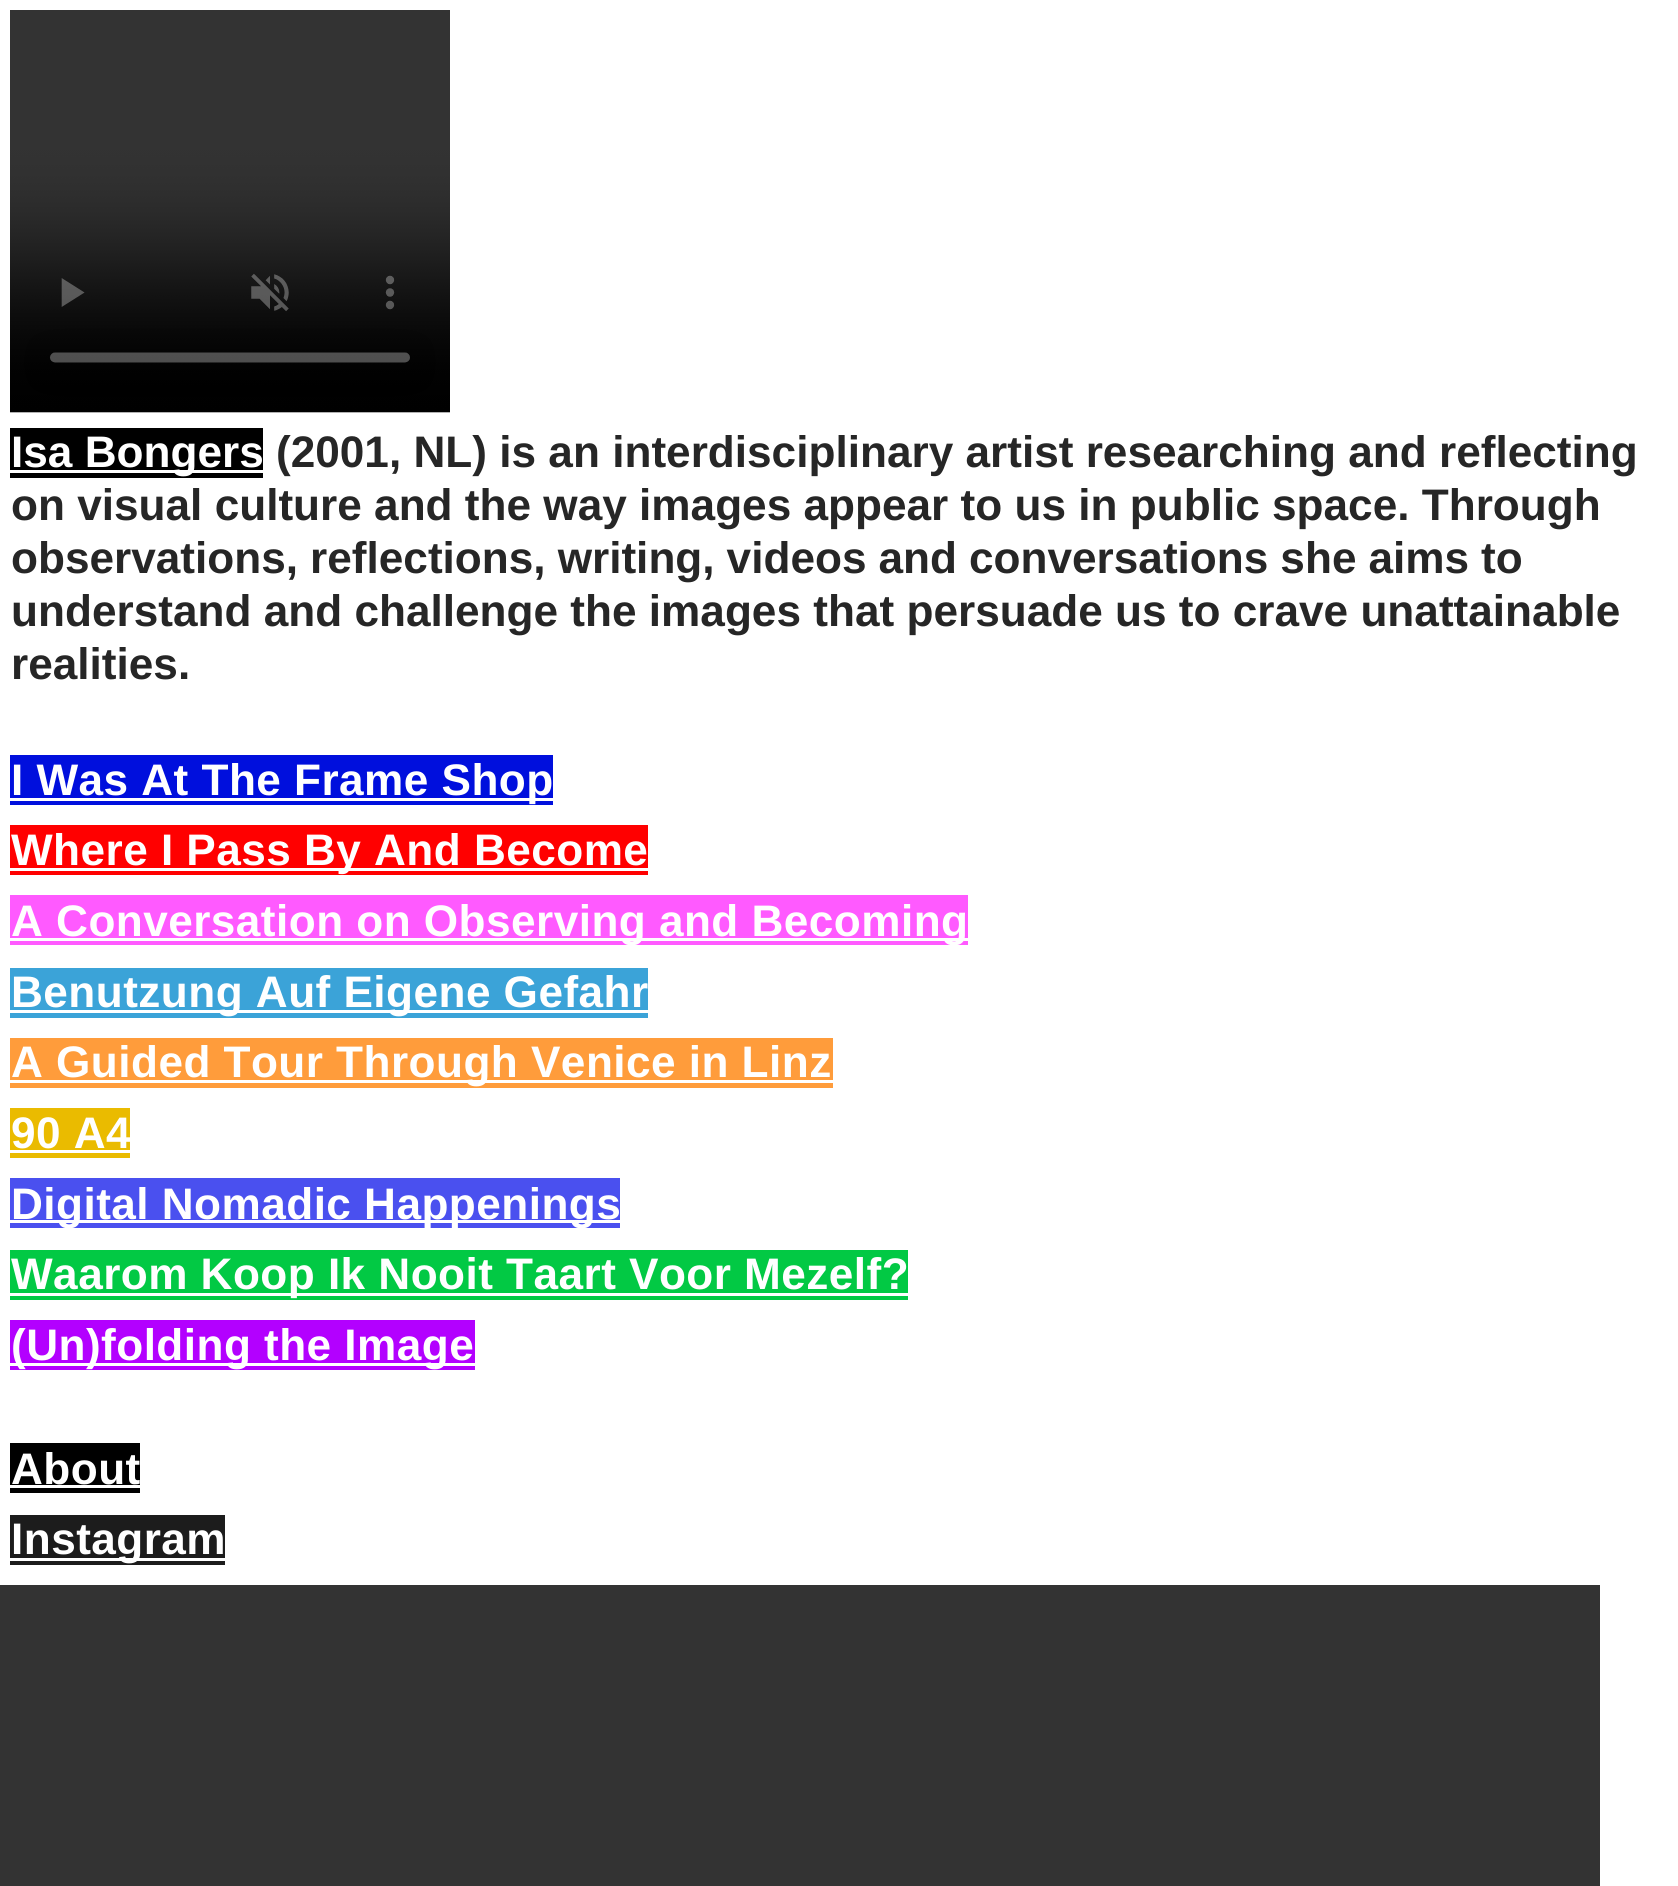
#include <cairo.h>
#include <math.h>
#include <stddef.h>

static cairo_t *c;
static void C(unsigned color){cairo_set_source_rgb(c, (color >> 16) / 255.0, (color >> 8 & 255) / 255.0, (color & 255) / 255.0);}
static void F(const char *family, double size, int italic, int bold){cairo_select_font_face(c, family, italic ? CAIRO_FONT_SLANT_ITALIC : CAIRO_FONT_SLANT_NORMAL,bold ? CAIRO_FONT_WEIGHT_BOLD : CAIRO_FONT_WEIGHT_NORMAL);cairo_set_font_size(c, size);}
static void T(double x, double y, const char *s){cairo_move_to(c, x, y);cairo_show_text(c, s);}
static void L(double x, double y, const char *s, double letter, double word){cairo_move_to(c, x, y);while (*s) {char ch[5] = {0};int n = 0;do ch[n++] = *s++; while ((*s & 0xC0) == 0x80);cairo_show_text(c, ch);cairo_rel_move_to(c, letter + word * (*ch == ' '), 0);}}
static void R(double x, double y, double w, double h){cairo_rectangle(c, x, y, w, h);cairo_fill(c);}
static void I(const char *path, double x, double y, double w, double h){cairo_surface_t *image = cairo_image_surface_create_from_png(path);cairo_save(c);cairo_set_source_surface(c, image, x, y);cairo_rectangle(c, x, y, w, h);cairo_fill(c);cairo_restore(c);cairo_surface_destroy(image);}
int main(void) {
cairo_surface_t *surface = cairo_image_surface_create(CAIRO_FORMAT_RGB24, 1678, 1886);
c = cairo_create(surface);
cairo_font_options_t *options = cairo_font_options_create();
cairo_font_options_set_hint_metrics(options, CAIRO_HINT_METRICS_OFF);
cairo_font_options_set_hint_style(options, CAIRO_HINT_STYLE_NONE);
cairo_set_font_options(c, options);
cairo_set_miter_limit(c, 4);
C(0xffffff);
cairo_paint(c);
I("1.png",10,10,440,403);
C(0x000000);
R(10,428,253,50);
C(0xffffff);
R(10,470,253,3);
F("Liberation Sans",44.15,0,1);
T(11,467,"Isa Bongers");
C(0x262626);
T(276,467,"(2001, NL) is an interdisciplinary artist researching and reflecting");
T(11,520,"on visual culture and the way images appear to us in public space. Through");
L(11,573,"observations, reflections, writing, videos and conversations she aims to",0,-.25);
T(11,626,"understand and challenge the images that persuade us to crave unattainable");
T(11,679,"realities.");
C(0x000fdd);
R(10,755,543,50);
C(0xffffff);
R(10,798,543,3);
L(11,795,"I Was At The Frame Shop",.45,0);
C(0xff0000);
R(10,825,638,50);
C(0xffffff);
R(10,868,638,3);
L(11,865,"Where I Pass By And Become",.45,0);
C(0xff5aff);
R(10,895,958,50);
C(0xffffff);
R(10,938,958,3);
L(11,936,"A Conversation on Observing and Becoming",.45,0);
C(0x3ba3d8);
R(10,968,638,50);
C(0xffffff);
R(10,1010,638,3);
L(11,1007,"Benutzung Auf Eigene Gefahr",.45,0);
C(0xff9c3b);
R(10,1038,823,50);
C(0xffffff);
R(10,1080,823,3);
L(11,1077,"A Guided Tour Through Venice in Linz",.45,0);
C(0xeabb00);
R(10,1108,120,50);
C(0xffffff);
L(11,1148,"90 A4",.45,0);
R(10,1150,120,3);
C(0x4a50ef);
R(10,1178,610,50);
C(0xffffff);
R(10,1220,610,3);
L(11,1219,"Digital Nomadic Happenings",.45,0);
C(0x02c944);
R(10,1250,898,50);
C(0xffffff);
R(10,1293,898,3);
L(11,1289,"Waarom Koop Ik Nooit Taart Voor Mezelf?",.45,0);
C(0xb300ff);
R(10,1320,465,50);
C(0xffffff);
R(10,1363,465,3);
L(11,1360,"(Un)folding the Image",.45,0);
C(0x000000);
R(10,1443,130,50);
C(0xffffff);
L(11,1484,"About",.45,0);
R(10,1485,130,3);
C(0x1c1c1c);
R(10,1515,215,50);
C(0xffffff);
R(10,1558,215,3);
L(11,1554,"Instagram",.45,0);
C(0x333333);
R(0,1585,1600,301);
cairo_surface_write_to_png(surface, "o.png");
cairo_font_options_destroy(options);
cairo_destroy(c);
cairo_surface_destroy(surface);
return 0;
}
